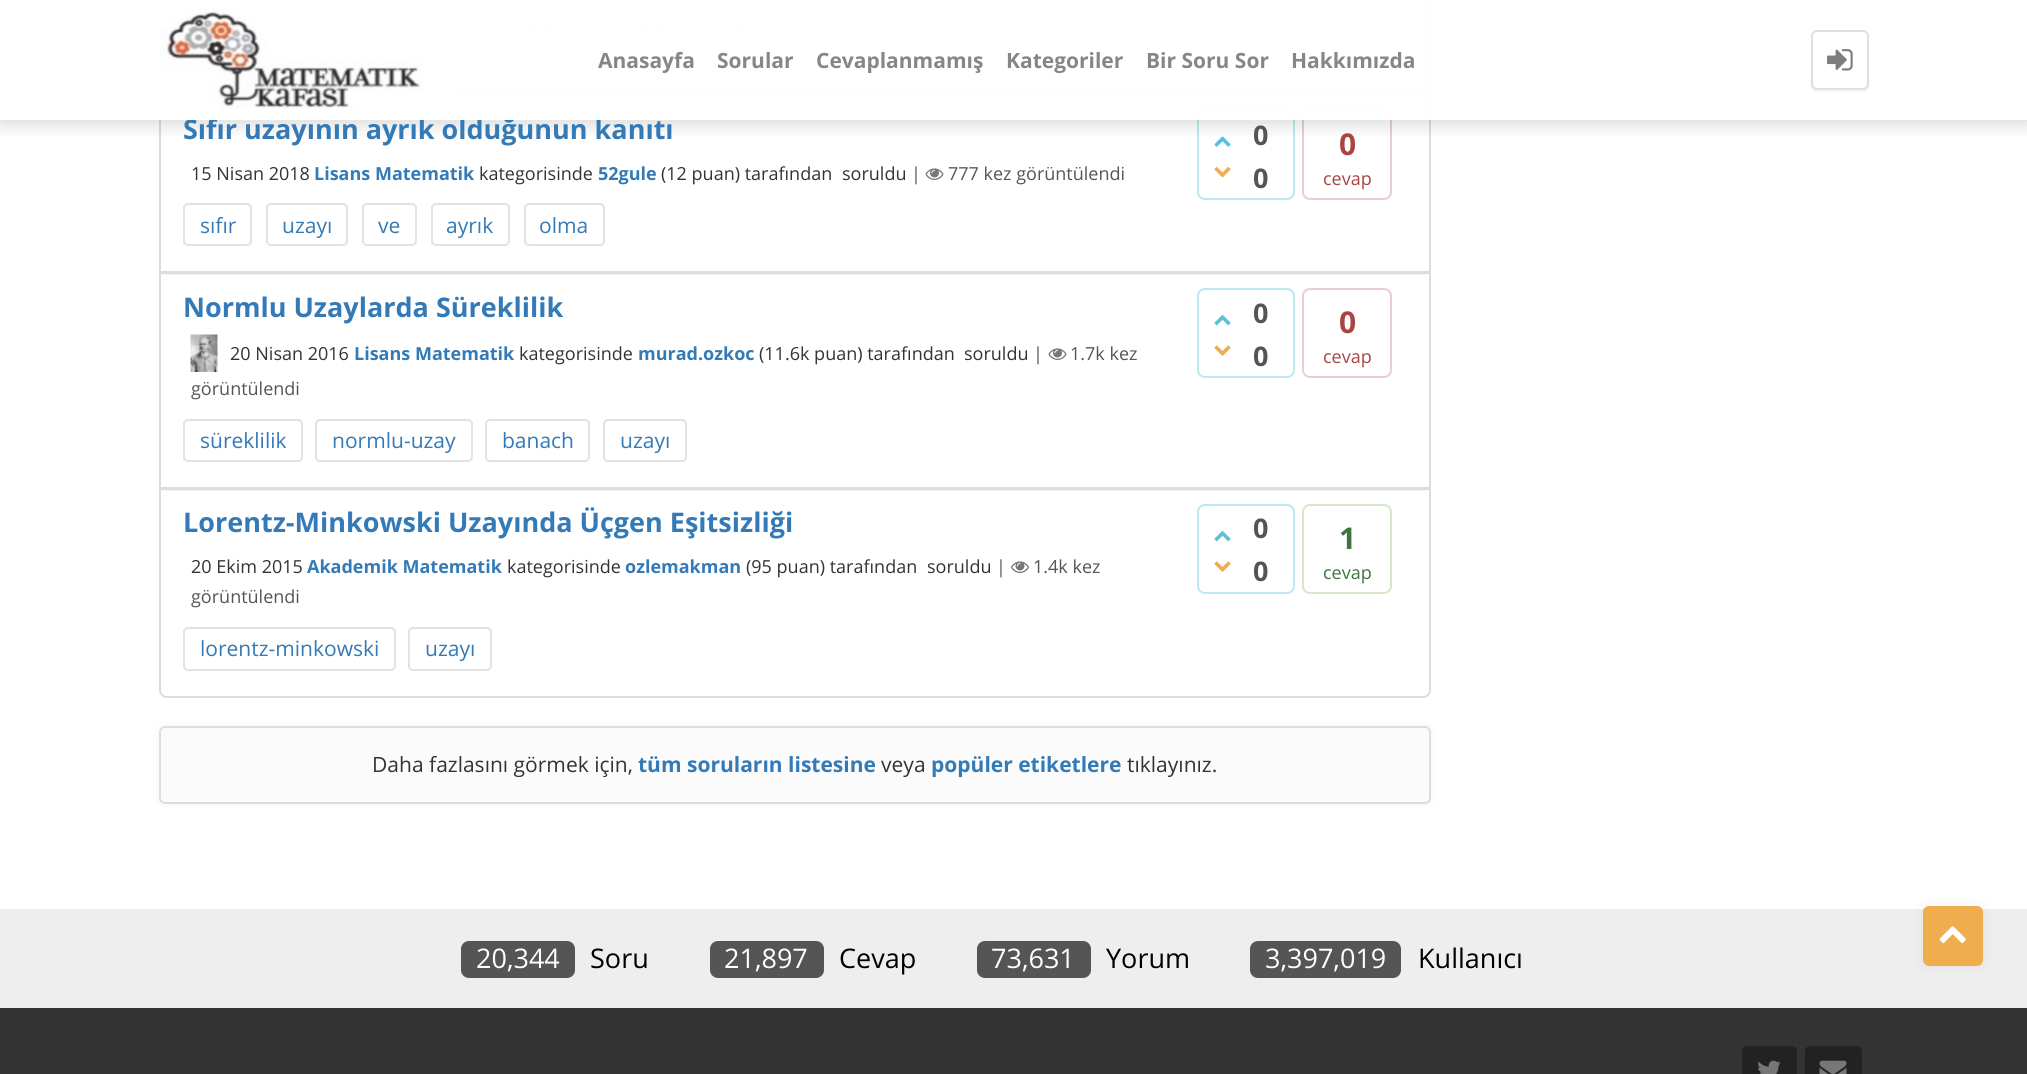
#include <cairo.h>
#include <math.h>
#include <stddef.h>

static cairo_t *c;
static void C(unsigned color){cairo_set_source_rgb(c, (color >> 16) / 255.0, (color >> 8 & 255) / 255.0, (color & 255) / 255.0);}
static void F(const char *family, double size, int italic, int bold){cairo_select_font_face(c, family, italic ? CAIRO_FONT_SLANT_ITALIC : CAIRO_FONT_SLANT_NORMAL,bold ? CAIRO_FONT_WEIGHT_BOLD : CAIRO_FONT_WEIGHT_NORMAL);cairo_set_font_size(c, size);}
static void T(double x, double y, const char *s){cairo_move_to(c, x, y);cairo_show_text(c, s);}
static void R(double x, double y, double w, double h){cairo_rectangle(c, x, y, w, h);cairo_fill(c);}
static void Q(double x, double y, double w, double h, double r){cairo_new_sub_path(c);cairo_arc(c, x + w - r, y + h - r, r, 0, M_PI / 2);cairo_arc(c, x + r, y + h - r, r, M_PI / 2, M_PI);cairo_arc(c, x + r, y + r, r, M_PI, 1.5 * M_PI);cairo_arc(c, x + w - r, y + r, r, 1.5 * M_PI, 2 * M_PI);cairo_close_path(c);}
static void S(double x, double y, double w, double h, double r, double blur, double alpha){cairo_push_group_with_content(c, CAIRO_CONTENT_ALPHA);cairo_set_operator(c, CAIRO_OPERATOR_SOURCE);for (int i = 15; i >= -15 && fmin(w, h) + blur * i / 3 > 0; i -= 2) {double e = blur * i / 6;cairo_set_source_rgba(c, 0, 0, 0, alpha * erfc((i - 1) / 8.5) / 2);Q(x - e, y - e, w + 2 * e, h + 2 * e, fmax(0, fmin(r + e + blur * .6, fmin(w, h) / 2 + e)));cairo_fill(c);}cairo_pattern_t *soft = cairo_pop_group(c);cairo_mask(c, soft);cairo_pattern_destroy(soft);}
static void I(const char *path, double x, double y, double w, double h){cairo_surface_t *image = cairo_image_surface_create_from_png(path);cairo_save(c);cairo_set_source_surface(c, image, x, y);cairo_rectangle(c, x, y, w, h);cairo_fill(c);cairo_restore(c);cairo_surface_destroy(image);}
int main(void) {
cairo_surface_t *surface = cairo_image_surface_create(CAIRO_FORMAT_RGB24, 2027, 1074);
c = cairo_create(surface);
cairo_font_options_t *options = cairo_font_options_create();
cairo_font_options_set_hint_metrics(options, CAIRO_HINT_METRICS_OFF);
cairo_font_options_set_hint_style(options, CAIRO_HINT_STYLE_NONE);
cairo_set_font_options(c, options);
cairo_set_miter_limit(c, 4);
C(0xffffff);
cairo_paint(c);
cairo_rectangle(c,160,-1,1270,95);
C(0xdddddd);
cairo_stroke(c);
Q(184,25,93,42,4);
C(0xe2e2e2);
cairo_stroke(c);
Q(292,25,103,42,4);
cairo_stroke(c);
Q(411,25,121,42,4);
cairo_stroke(c);
Q(547,25,99,42,4);
cairo_stroke(c);
Q(660,25,82,42,4);
cairo_stroke(c);
cairo_save(c);
cairo_rectangle(c,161,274,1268,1);
cairo_clip(c);
C(0x000000);
S(159,95,1272,180,0,1,.05);
cairo_restore(c);
cairo_rectangle(c,160,94,1270,178);
C(0xdddddd);
cairo_stroke(c);
Q(1198,111,96,88,7);
C(0xbce8f1);
cairo_stroke(c);
I("4.png",1214,136,17,11);
Q(1303,111,88,88,7);
C(0xebccd1);
cairo_stroke(c);
cairo_save(c);
cairo_rectangle(c,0,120,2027,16);
cairo_clip(c);
C(0x000000);
S(0,2,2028,120,0,11,.19);
cairo_restore(c);
F("Open Sans",27,0,1);
C(0x337ab7);
T(183,139,"Sıfır uzayının ayrık olduğunun kanıtı");
cairo_set_source_rgba(c,1,1,1,0.95);
R(158,0,1274,120);
I("1.png",161,8,294,101);
F("Open Sans",21,0,1);
C(0x868686);
T(598,68,"Anasayfa");
T(717,68,"Sorular");
T(816,68,"Cevaplanmamış");
T(1006,68,"Kategoriler");
T(1146,68,"Bir Soru Sor");
T(1291,68,"Hakkımızda");
C(0x0d0d0d);
S(1811,32,58,60,6,1,.05);
C(0xffffff);
Q(1812,31,56,58,5);
cairo_fill_preserve(c);
C(0xdfdfdf);
cairo_stroke(c);
I("2.png",1827,49,26,22);
F("Open Sans",18,0,0);
C(0x333333);
T(191,180,"15 Nisan 2018");
F("Open Sans",18,0,1);
C(0x337ab7);
T(314,180,"Lisans Matematik");
F("Open Sans",18,0,0);
C(0x333333);
T(479,180,"kategorisinde");
F("Open Sans",18,0,1);
C(0x337ab7);
T(598,180,"52gule");
F("Open Sans",18,0,0);
C(0x333333);
T(661,180,"(12 puan) tarafından");
T(842,180,"soruldu");
C(0x555555);
T(911,180,"|");
I("3.png",925,168,19,12);
T(948,180,"777 kez görüntülendi");
Q(184,204,67,41,4);
C(0xe2e2e2);
cairo_stroke(c);
F("Open Sans",21,0,0);
C(0x337ab7);
T(200,233,"sıfır");
Q(267,204,80,41,4);
C(0xe2e2e2);
cairo_stroke(c);
C(0x337ab7);
T(282,233,"uzayı");
Q(363,204,53,41,4);
C(0xe2e2e2);
cairo_stroke(c);
C(0x337ab7);
T(378,233,"ve");
Q(432,204,77,41,4);
C(0xe2e2e2);
cairo_stroke(c);
C(0x337ab7);
T(446,233,"ayrık");
Q(525,204,79,41,4);
C(0xe2e2e2);
cairo_stroke(c);
C(0x337ab7);
T(539,233,"olma");
I("5.png",1214,167,17,11);
F("Open Sans",27,0,1);
C(0x555555);
T(1253,145,"0");
T(1253,188,"0");
F("Open Sans",30,0,1);
C(0xa94442);
T(1339,155,"0");
F("Open Sans",18,0,0);
T(1323,185,"cevap");
cairo_save(c);
cairo_rectangle(c,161,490,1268,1);
cairo_clip(c);
C(0x000000);
S(159,273,1272,218,0,1,.05);
cairo_restore(c);
cairo_rectangle(c,160,273,1270,215);
C(0xdddddd);
cairo_stroke(c);
F("Open Sans",27,0,1);
C(0x337ab7);
T(183,317,"Normlu Uzaylarda Süreklilik");
I("6.png",190,334,28,38);
F("Open Sans",18,0,0);
C(0x555555);
T(1033,360,"|");
I("3.png",1048,348,19,12);
T(1070,360,"1.7k kez");
T(191,395,"görüntülendi");
C(0x333333);
T(230,360,"20 Nisan 2016");
F("Open Sans",18,0,1);
C(0x337ab7);
T(354,360,"Lisans Matematik");
F("Open Sans",18,0,0);
C(0x333333);
T(519,360,"kategorisinde");
F("Open Sans",18,0,1);
C(0x337ab7);
T(638,360,"murad.ozkoc");
F("Open Sans",18,0,0);
C(0x333333);
T(759,360,"(11.6k puan) tarafından");
T(964,360,"soruldu");
Q(184,420,118,41,4);
C(0xe2e2e2);
cairo_stroke(c);
F("Open Sans",21,0,0);
C(0x337ab7);
T(200,448,"süreklilik");
Q(316,420,156,41,4);
C(0xe2e2e2);
cairo_stroke(c);
C(0x337ab7);
T(332,448,"normlu-uzay");
Q(486,420,103,41,4);
C(0xe2e2e2);
cairo_stroke(c);
C(0x337ab7);
T(502,448,"banach");
Q(604,420,82,41,4);
C(0xe2e2e2);
cairo_stroke(c);
C(0x337ab7);
T(620,448,"uzayı");
Q(1198,289,96,88,7);
C(0xbce8f1);
cairo_stroke(c);
I("7.png",1214,315,17,11);
I("8.png",1214,345,17,11);
F("Open Sans",27,0,1);
C(0x555555);
T(1253,323,"0");
T(1253,366,"0");
Q(1303,289,88,88,7);
C(0xebccd1);
cairo_stroke(c);
F("Open Sans",30,0,1);
C(0xa94442);
T(1339,333,"0");
F("Open Sans",18,0,0);
T(1323,363,"cevap");
cairo_new_path(c);
cairo_move_to(c,160,489);
cairo_line_to(c,1430,489);
cairo_line_to(c,1430,690);
cairo_curve_to(c,1430,694,1427,697,1423,697);
cairo_line_to(c,167,697);
cairo_curve_to(c,163,697,160,694,160,690);
cairo_close_path(c);
C(0xdddddd);
cairo_stroke(c);
F("Open Sans",27,0,1);
C(0x337ab7);
T(183,532,"Lorentz-Minkowski Uzayında Üçgen Eşitsizliği");
F("Open Sans",18,0,0);
C(0x555555);
T(996,573,"|");
I("9.png",1011,561,18,12);
T(1033,573,"1.4k kez");
T(191,603,"görüntülendi");
C(0x333333);
T(191,573,"20 Ekim 2015");
F("Open Sans",18,0,1);
C(0x337ab7);
T(307,573,"Akademik Matematik");
F("Open Sans",18,0,0);
C(0x333333);
T(507,573,"kategorisinde");
F("Open Sans",18,0,1);
C(0x337ab7);
T(625,573,"ozlemakman");
F("Open Sans",18,0,0);
C(0x333333);
T(746,573,"(95 puan) tarafından");
T(927,573,"soruldu");
Q(184,628,211,42,4);
C(0xe2e2e2);
cairo_stroke(c);
F("Open Sans",21,0,0);
C(0x337ab7);
T(200,656,"lorentz-minkowski");
Q(409,628,82,42,4);
C(0xe2e2e2);
cairo_stroke(c);
C(0x337ab7);
T(425,656,"uzayı");
Q(1198,505,96,88,7);
C(0xbce8f1);
cairo_stroke(c);
I("7.png",1214,531,17,11);
I("8.png",1214,561,17,11);
F("Open Sans",27,0,1);
C(0x555555);
T(1253,538,"0");
T(1253,581,"0");
Q(1303,505,88,88,7);
C(0xd6e9c6);
cairo_stroke(c);
F("Open Sans",30,0,1);
C(0x3c763d);
T(1339,549,"1");
F("Open Sans",18,0,0);
T(1323,579,"cevap");
C(0x000000);
S(159,726,1272,78,6,4,.05);
C(0xfbfbfb);
Q(160,727,1270,76,5);
cairo_fill_preserve(c);
C(0xdddddd);
cairo_stroke(c);
F("Open Sans",21,0,0);
C(0x333333);
T(372,772,"Daha fazlasını görmek için,");
F("Open Sans",21,0,1);
C(0x337ab7);
T(638,772,"tüm soruların listesine");
F("Open Sans",21,0,0);
C(0x333333);
T(881,772,"veya");
F("Open Sans",21,0,1);
C(0x337ab7);
T(931,772,"popüler etiketlere");
F("Open Sans",21,0,0);
C(0x333333);
T(1127,772,"tıklayınız.");
R(0,1008,2027,66);
C(0xeeeeee);
R(0,909,2027,99);
C(0x000000);
S(1923,906,60,60,6,7.5,.05);
C(0xf0ad4e);
Q(1923,906,60,60,6);
cairo_fill(c);
I("10.png",1939,926,27,18);
C(0x222222);
Q(1742,1046,55,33,5);
cairo_fill(c);
I("11.png",1758,1060,23,14);
Q(1805,1046,57,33,5);
cairo_fill(c);
I("12.png",1819,1060,28,14);
C(0x555555);
Q(461,941,114,37,8);
cairo_fill(c);
F("Open Sans",27,0,0);
C(0xffffff);
T(476,968,"20,344");
C(0x000000);
T(590,968,"Soru");
C(0x555555);
Q(710,941,114,37,8);
cairo_fill(c);
C(0xffffff);
T(724,968,"21,897");
C(0x000000);
T(839,968,"Cevap");
C(0x555555);
Q(977,941,114,37,8);
cairo_fill(c);
C(0xffffff);
T(991,968,"73,631");
C(0x000000);
T(1106,968,"Yorum");
C(0x555555);
Q(1250,941,151,37,8);
cairo_fill(c);
C(0xffffff);
T(1265,968,"3,397,019");
C(0x000000);
T(1418,968,"Kullanıcı");
cairo_surface_write_to_png(surface, "o.png");
cairo_font_options_destroy(options);
cairo_destroy(c);
cairo_surface_destroy(surface);
return 0;
}
